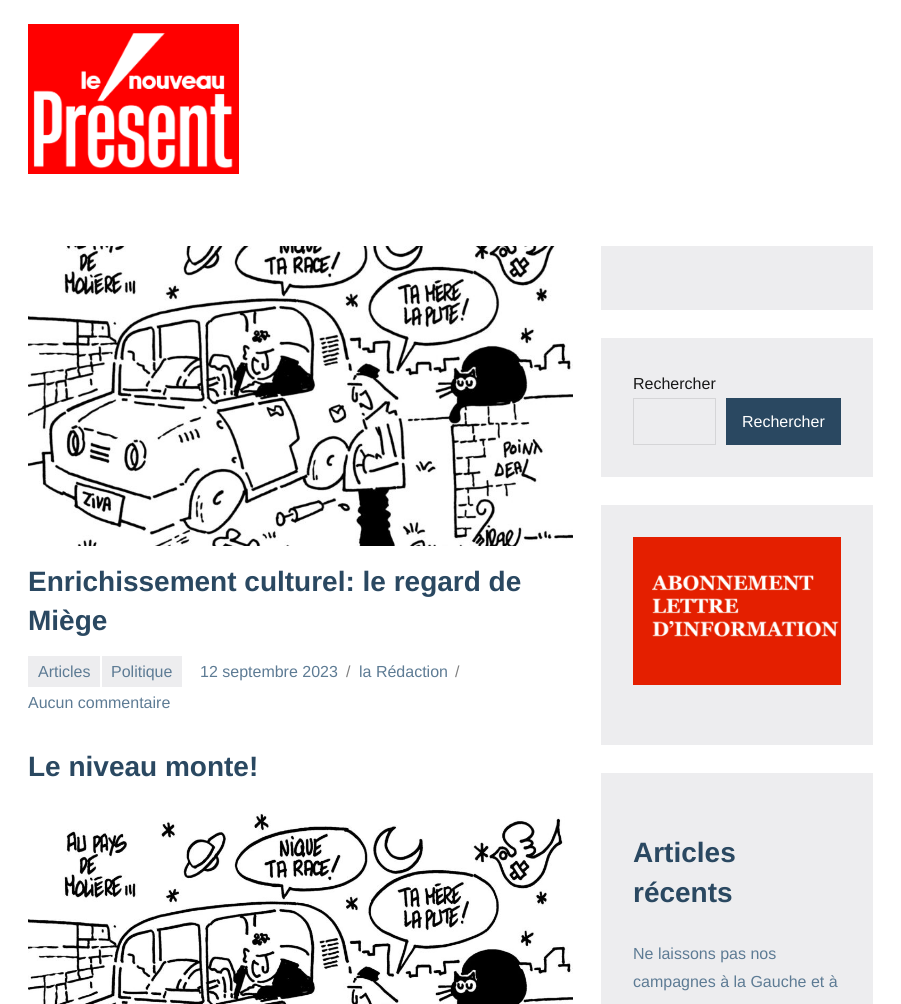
#include <cairo.h>
#include <math.h>
#include <stddef.h>

static cairo_t *c;
static void C(unsigned color){cairo_set_source_rgb(c, (color >> 16) / 255.0, (color >> 8 & 255) / 255.0, (color & 255) / 255.0);}
static void F(const char *family, double size, int italic, int bold){cairo_select_font_face(c, family, italic ? CAIRO_FONT_SLANT_ITALIC : CAIRO_FONT_SLANT_NORMAL,bold ? CAIRO_FONT_WEIGHT_BOLD : CAIRO_FONT_WEIGHT_NORMAL);cairo_set_font_size(c, size);}
static void T(double x, double y, const char *s){cairo_move_to(c, x, y);cairo_show_text(c, s);}
static void R(double x, double y, double w, double h){cairo_rectangle(c, x, y, w, h);cairo_fill(c);}
static void I(const char *path, double x, double y, double w, double h){cairo_surface_t *image = cairo_image_surface_create_from_png(path);cairo_save(c);cairo_set_source_surface(c, image, x, y);cairo_rectangle(c, x, y, w, h);cairo_fill(c);cairo_restore(c);cairo_surface_destroy(image);}
int main(void) {
cairo_surface_t *surface = cairo_image_surface_create(CAIRO_FORMAT_RGB24, 901, 1004);
c = cairo_create(surface);
cairo_font_options_t *options = cairo_font_options_create();
cairo_font_options_set_hint_metrics(options, CAIRO_HINT_METRICS_OFF);
cairo_font_options_set_hint_style(options, CAIRO_HINT_STYLE_NONE);
cairo_set_font_options(c, options);
cairo_set_miter_limit(c, 4);
C(0xffffff);
cairo_paint(c);
I("1.png",28,24,211,150);
I("2.png",28,246,545,300);
F("Liberation Sans",28,0,1);
C(0x2a4861);
T(28,591,"Enrichissement culturel: le regard de");
T(28,630,"Miège");
C(0xededef);
R(28,656,72,31);
F("Liberation Sans",16,0,0);
C(0x5d7b94);
T(38,677,"Articles");
C(0xededef);
R(102,656,80,31);
C(0x5d7b94);
T(111,677,"Politique");
T(200,677,"12 septembre 2023");
C(0x808080);
T(346,677,"/");
C(0x5d7b94);
T(359,677,"la Rédaction");
C(0x808080);
T(455,677,"/");
C(0x5d7b94);
T(28,708,"Aucun commentaire");
F("Liberation Sans",28,0,1);
C(0x2a4861);
T(28,776,"Le niveau monte!");
I("3.png",28,813,545,191);
C(0xededef);
R(601,246,272,64);
R(601,338,272,139);
F("Liberation Sans",16,0,0);
C(0x181818);
T(633,389,"Rechercher");
cairo_rectangle(c,633.5,398.5,82,46);
C(0xd5d5d7);
cairo_set_line_width(c,1);
cairo_stroke(c);
C(0x2a4861);
R(726,398,115,47);
C(0xffffff);
T(742,427,"Rechercher");
C(0xededef);
R(601,505,272,240);
I("4.png",633,537,208,148);
R(601,773,272,231);
F("Liberation Sans",28,0,1);
C(0x2a4861);
T(633,862,"Articles");
T(633,902,"récents");
F("Liberation Sans",16,0,0);
C(0x5d7b94);
T(633,959,"Ne laissons pas nos");
T(633,987,"campagnes à la Gauche et à");
cairo_surface_write_to_png(surface, "o.png");
cairo_font_options_destroy(options);
cairo_destroy(c);
cairo_surface_destroy(surface);
return 0;
}
